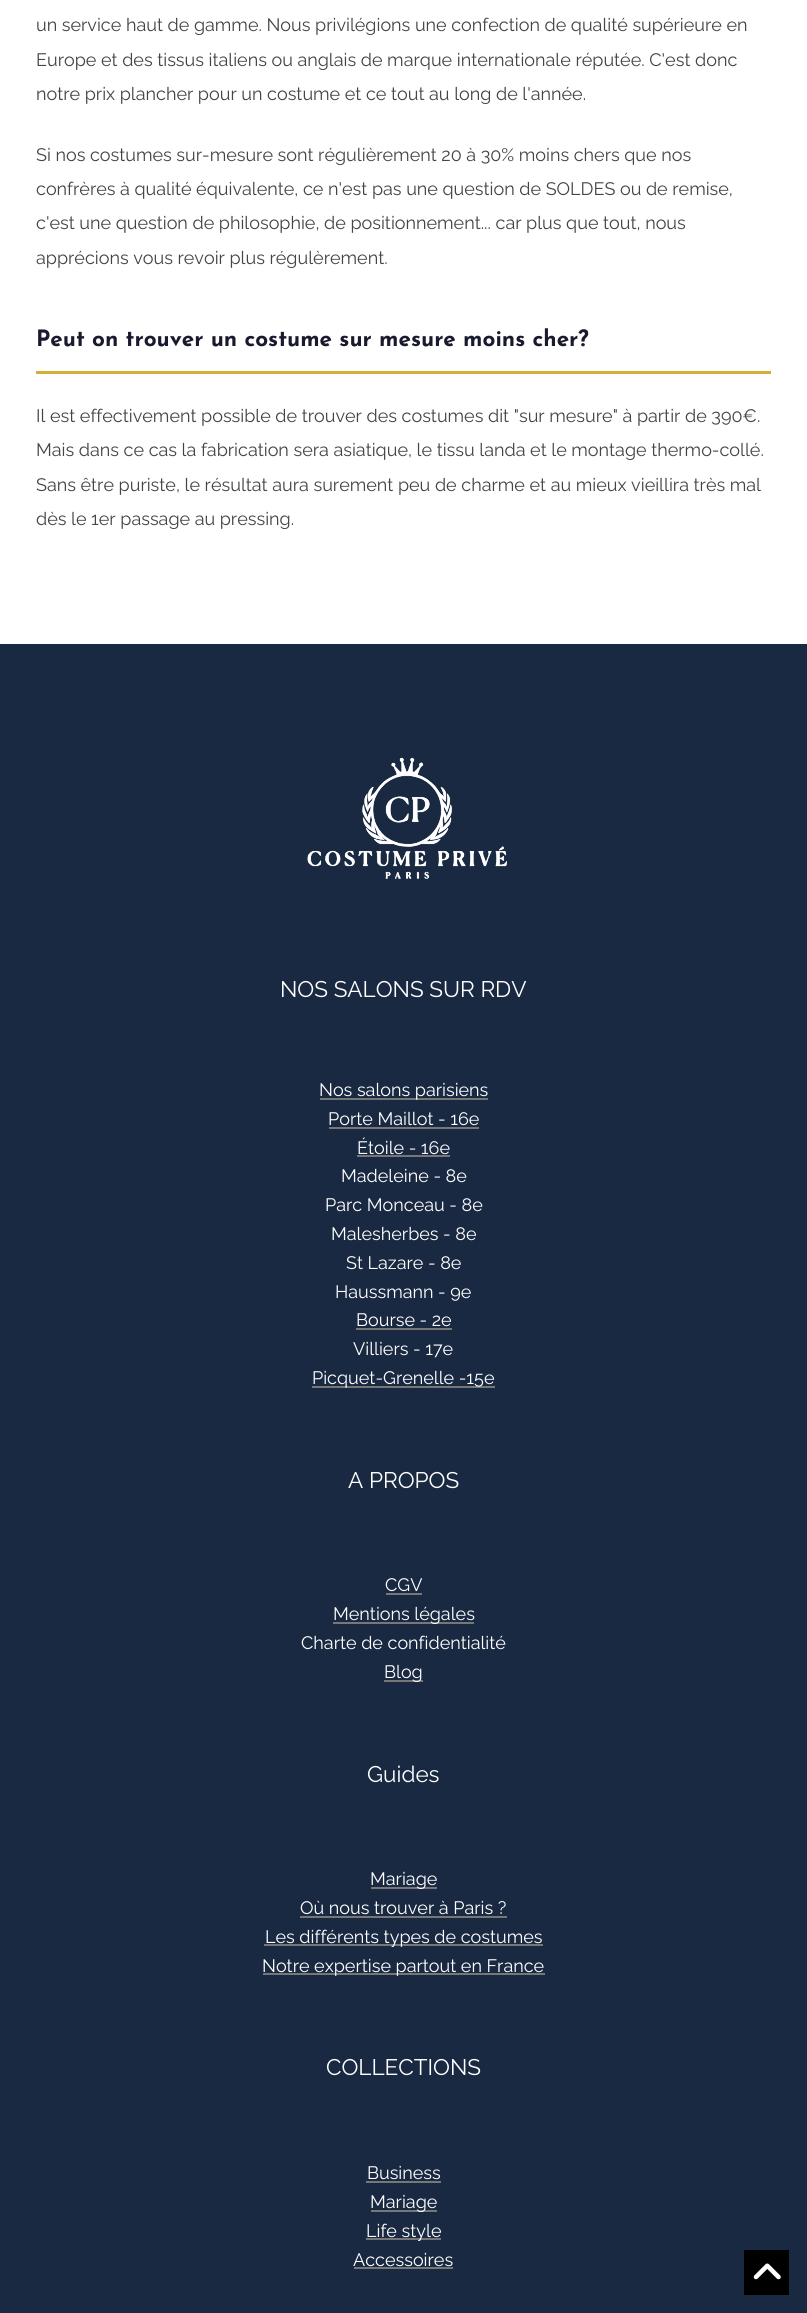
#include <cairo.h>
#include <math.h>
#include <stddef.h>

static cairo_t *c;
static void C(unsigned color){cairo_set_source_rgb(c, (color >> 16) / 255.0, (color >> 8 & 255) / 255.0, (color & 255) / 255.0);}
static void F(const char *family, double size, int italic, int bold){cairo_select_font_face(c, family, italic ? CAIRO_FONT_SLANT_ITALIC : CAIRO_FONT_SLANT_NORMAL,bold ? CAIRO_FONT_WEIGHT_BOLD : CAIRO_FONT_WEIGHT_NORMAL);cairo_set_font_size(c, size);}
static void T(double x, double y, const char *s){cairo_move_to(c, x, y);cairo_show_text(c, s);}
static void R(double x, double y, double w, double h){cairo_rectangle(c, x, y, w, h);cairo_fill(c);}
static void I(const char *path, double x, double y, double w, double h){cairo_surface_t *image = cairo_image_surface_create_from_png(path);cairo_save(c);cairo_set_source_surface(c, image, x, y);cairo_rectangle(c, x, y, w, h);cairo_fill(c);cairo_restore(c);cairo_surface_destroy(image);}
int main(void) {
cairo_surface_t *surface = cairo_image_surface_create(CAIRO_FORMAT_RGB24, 807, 2313);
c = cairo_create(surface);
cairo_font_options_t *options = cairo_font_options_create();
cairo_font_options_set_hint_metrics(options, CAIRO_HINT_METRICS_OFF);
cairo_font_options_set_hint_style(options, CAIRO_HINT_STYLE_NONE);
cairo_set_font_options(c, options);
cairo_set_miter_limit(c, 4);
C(0xffffff);
cairo_paint(c);
F("Raleway",18,0,0);
C(0x444444);
T(36,31,"un service haut de gamme. Nous privilégions une confection de qualité supérieure en");
T(36,66,"Europe et des tissus italiens ou anglais de marque internationale réputée. C'est donc");
T(36,100,"notre prix plancher pour un costume et ce tout au long de l'année.");
T(36,161,"Si nos costumes sur-mesure sont régulièrement 20 à 30% moins chers que nos");
T(36,195,"confrères à qualité équivalente, ce n'est pas une question de SOLDES ou de remise,");
T(36,229,"c'est une question de philosophie, de positionnement... car plus que tout, nous");
T(36,264,"apprécions vous revoir plus régulèrement.");
C(0xd4af37);
R(36,371,735,3);
F("Josefin Sans",22.5,0,1);
C(0x1a1a2e);
T(36,346,"Peut on trouver un costume sur mesure moins cher?");
F("Raleway",18,0,0);
C(0x444444);
T(36,422,"Il est effectivement possible de trouver des costumes dit \"sur mesure\" à partir de 390€.");
T(36,456,"Mais dans ce cas la fabrication sera asiatique, le tissu landa et le montage thermo-collé.");
T(36,491,"Sans être puriste, le résultat aura surement peu de charme et au mieux vieillira très mal");
T(36,525,"dès le 1er passage au pressing.");
C(0x1a2942);
R(0,644,807,1669);
I("1.png",307,757,200,122);
F("Raleway",22.5,0,0);
C(0xffffff);
T(280,997,"NOS SALONS SUR RDV");
C(0x777777);
R(320,1098,168,2);
F("Raleway",18,0,0);
C(0xffffff);
T(319,1096,"Nos salons parisiens");
T(328,1125,"Porte Maillot - 16e");
C(0x777777);
R(329,1127,150,2);
C(0xffffff);
T(357,1154,"Étoile - 16e");
C(0x777777);
R(357,1155,93,2);
C(0xffffff);
T(341,1182,"Madeleine - 8e");
T(325,1211,"Parc Monceau - 8e");
T(331,1240,"Malesherbes - 8e");
T(346,1269,"St Lazare - 8e");
T(335,1298,"Haussmann - 9e");
T(356,1326,"Bourse - 2e");
C(0x777777);
R(356,1328,96,2);
C(0xffffff);
T(353,1355,"Villiers - 17e");
C(0x777777);
R(312,1386,183,2);
C(0xffffff);
T(312,1384,"Picquet-Grenelle -15e");
F("Raleway",22.5,0,0);
T(348,1488,"A PROPOS");
F("Raleway",18,0,0);
T(385,1591,"CGV");
C(0x777777);
R(386,1593,36,2);
R(333,1622,141,2);
C(0xffffff);
T(333,1620,"Mentions légales");
T(301,1649,"Charte de confidentialité");
C(0x777777);
R(384,1680,39,2);
C(0xffffff);
T(384,1678,"Blog");
F("Raleway",22.5,0,0);
T(367,1782,"Guides");
C(0x777777);
R(371,1887,66,2);
F("Raleway",18,0,0);
C(0xffffff);
T(370,1885,"Mariage");
T(300,1914,"Où nous trouver à Paris ?");
C(0x777777);
R(300,1916,207,2);
R(264,1944,279,2);
C(0xffffff);
T(265,1943,"Les différents types de costumes");
C(0x777777);
R(263,1973,282,2);
C(0xffffff);
T(262,1972,"Notre expertise partout en France");
F("Raleway",22.5,0,0);
T(326,2075,"COLLECTIONS");
F("Raleway",18,0,0);
T(367,2179,"Business");
C(0x777777);
R(366,2181,75,2);
R(371,2210,66,2);
C(0xffffff);
T(370,2208,"Mariage");
C(0x777777);
R(366,2238,75,2);
C(0xffffff);
T(366,2237,"Life style");
T(353,2266,"Accessoires");
C(0x777777);
R(354,2267,99,2);
C(0x000000);
R(744,2250,45,45);
I("2.png",753,2263,28,17);
cairo_surface_write_to_png(surface, "o.png");
cairo_font_options_destroy(options);
cairo_destroy(c);
cairo_surface_destroy(surface);
return 0;
}
